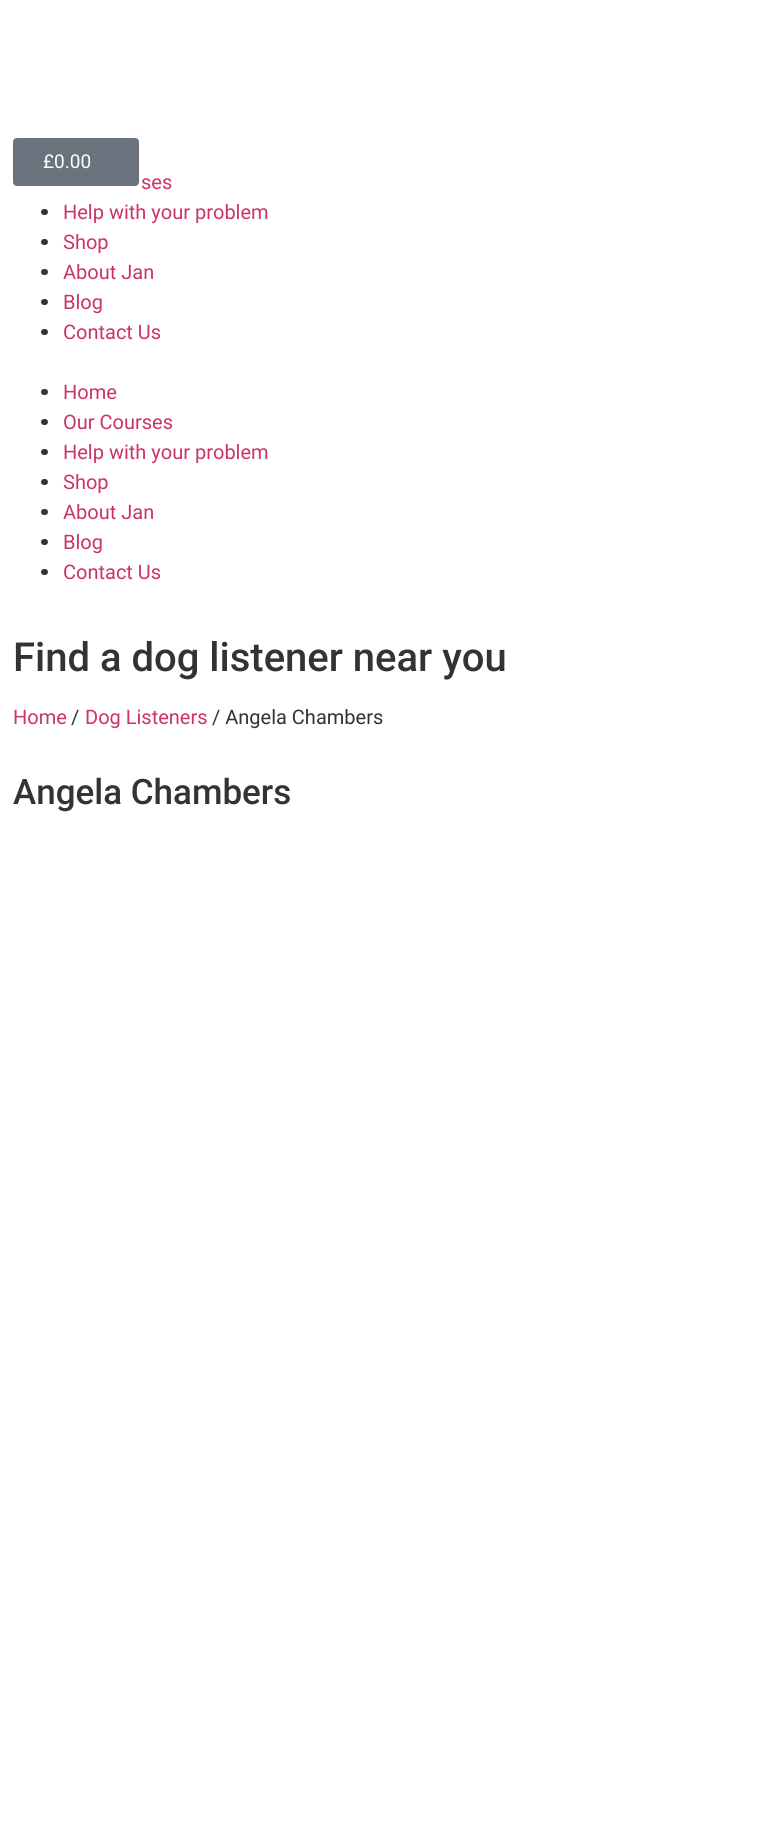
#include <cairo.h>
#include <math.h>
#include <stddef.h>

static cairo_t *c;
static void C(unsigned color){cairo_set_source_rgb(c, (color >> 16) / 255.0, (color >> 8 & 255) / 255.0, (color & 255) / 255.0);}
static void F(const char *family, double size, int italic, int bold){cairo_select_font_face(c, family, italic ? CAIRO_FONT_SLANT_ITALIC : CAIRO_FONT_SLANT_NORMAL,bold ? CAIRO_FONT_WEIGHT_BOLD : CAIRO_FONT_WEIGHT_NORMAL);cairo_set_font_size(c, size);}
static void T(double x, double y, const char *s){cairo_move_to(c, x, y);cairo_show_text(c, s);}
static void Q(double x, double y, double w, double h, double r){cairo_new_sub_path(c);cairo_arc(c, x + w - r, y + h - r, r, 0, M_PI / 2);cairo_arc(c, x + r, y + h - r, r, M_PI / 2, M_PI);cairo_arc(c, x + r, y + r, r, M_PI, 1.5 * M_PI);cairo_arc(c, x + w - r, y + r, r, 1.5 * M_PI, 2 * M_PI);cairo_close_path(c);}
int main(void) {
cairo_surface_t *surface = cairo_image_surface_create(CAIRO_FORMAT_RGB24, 766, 1824);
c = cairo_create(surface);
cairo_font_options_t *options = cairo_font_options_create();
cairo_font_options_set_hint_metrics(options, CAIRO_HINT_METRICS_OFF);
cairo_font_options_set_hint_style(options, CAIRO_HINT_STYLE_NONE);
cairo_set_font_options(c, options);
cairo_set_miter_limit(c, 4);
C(0xffffff);
cairo_paint(c);
C(0x69727d);
Q(13,138,126,48,4);
cairo_fill(c);
F("Roboto",19,0,0);
C(0xffffff);
T(43,168,"£0.00");
F("Roboto",20,0,0);
C(0xcc3366);
T(141,189,"ses");
C(0x333333);
Q(41,209,7,6,3);
cairo_fill(c);
C(0xcc3366);
T(63,219,"Help with your problem");
C(0x333333);
Q(41,239,7,6,3);
cairo_fill(c);
C(0xcc3366);
T(63,249,"Shop");
C(0x333333);
Q(41,269,7,6,3);
cairo_fill(c);
C(0xcc3366);
T(63,279,"About Jan");
C(0x333333);
Q(41,299,7,6,3);
cairo_fill(c);
C(0xcc3366);
T(63,309,"Blog");
C(0x333333);
Q(41,329,7,6,3);
cairo_fill(c);
C(0xcc3366);
T(63,339,"Contact Us");
C(0x333333);
Q(41,389,7,6,3);
cairo_fill(c);
C(0xcc3366);
T(63,399,"Home");
C(0x333333);
Q(41,419,7,6,3);
cairo_fill(c);
C(0xcc3366);
T(63,429,"Our Courses");
C(0x333333);
Q(41,449,7,6,3);
cairo_fill(c);
C(0xcc3366);
T(63,459,"Help with your problem");
C(0x333333);
Q(41,479,7,6,3);
cairo_fill(c);
C(0xcc3366);
T(63,489,"Shop");
C(0x333333);
Q(41,509,7,6,3);
cairo_fill(c);
C(0xcc3366);
T(63,519,"About Jan");
C(0x333333);
Q(41,539,7,6,3);
cairo_fill(c);
C(0xcc3366);
T(63,549,"Blog");
C(0x333333);
Q(41,569,7,6,3);
cairo_fill(c);
C(0xcc3366);
T(63,579,"Contact Us");
F("Roboto Medium",40,0,0);
C(0x333333);
T(13,671,"Find a dog listener near you");
F("Roboto",20,0,0);
C(0xcc3366);
T(13,724,"Home");
C(0x333333);
T(71,724,"/");
C(0xcc3366);
T(85,724,"Dog Listeners");
C(0x333333);
T(212,724,"/ Angela Chambers");
F("Roboto Medium",35,0,0);
T(13,804,"Angela Chambers");
cairo_surface_write_to_png(surface, "o.png");
cairo_font_options_destroy(options);
cairo_destroy(c);
cairo_surface_destroy(surface);
return 0;
}
